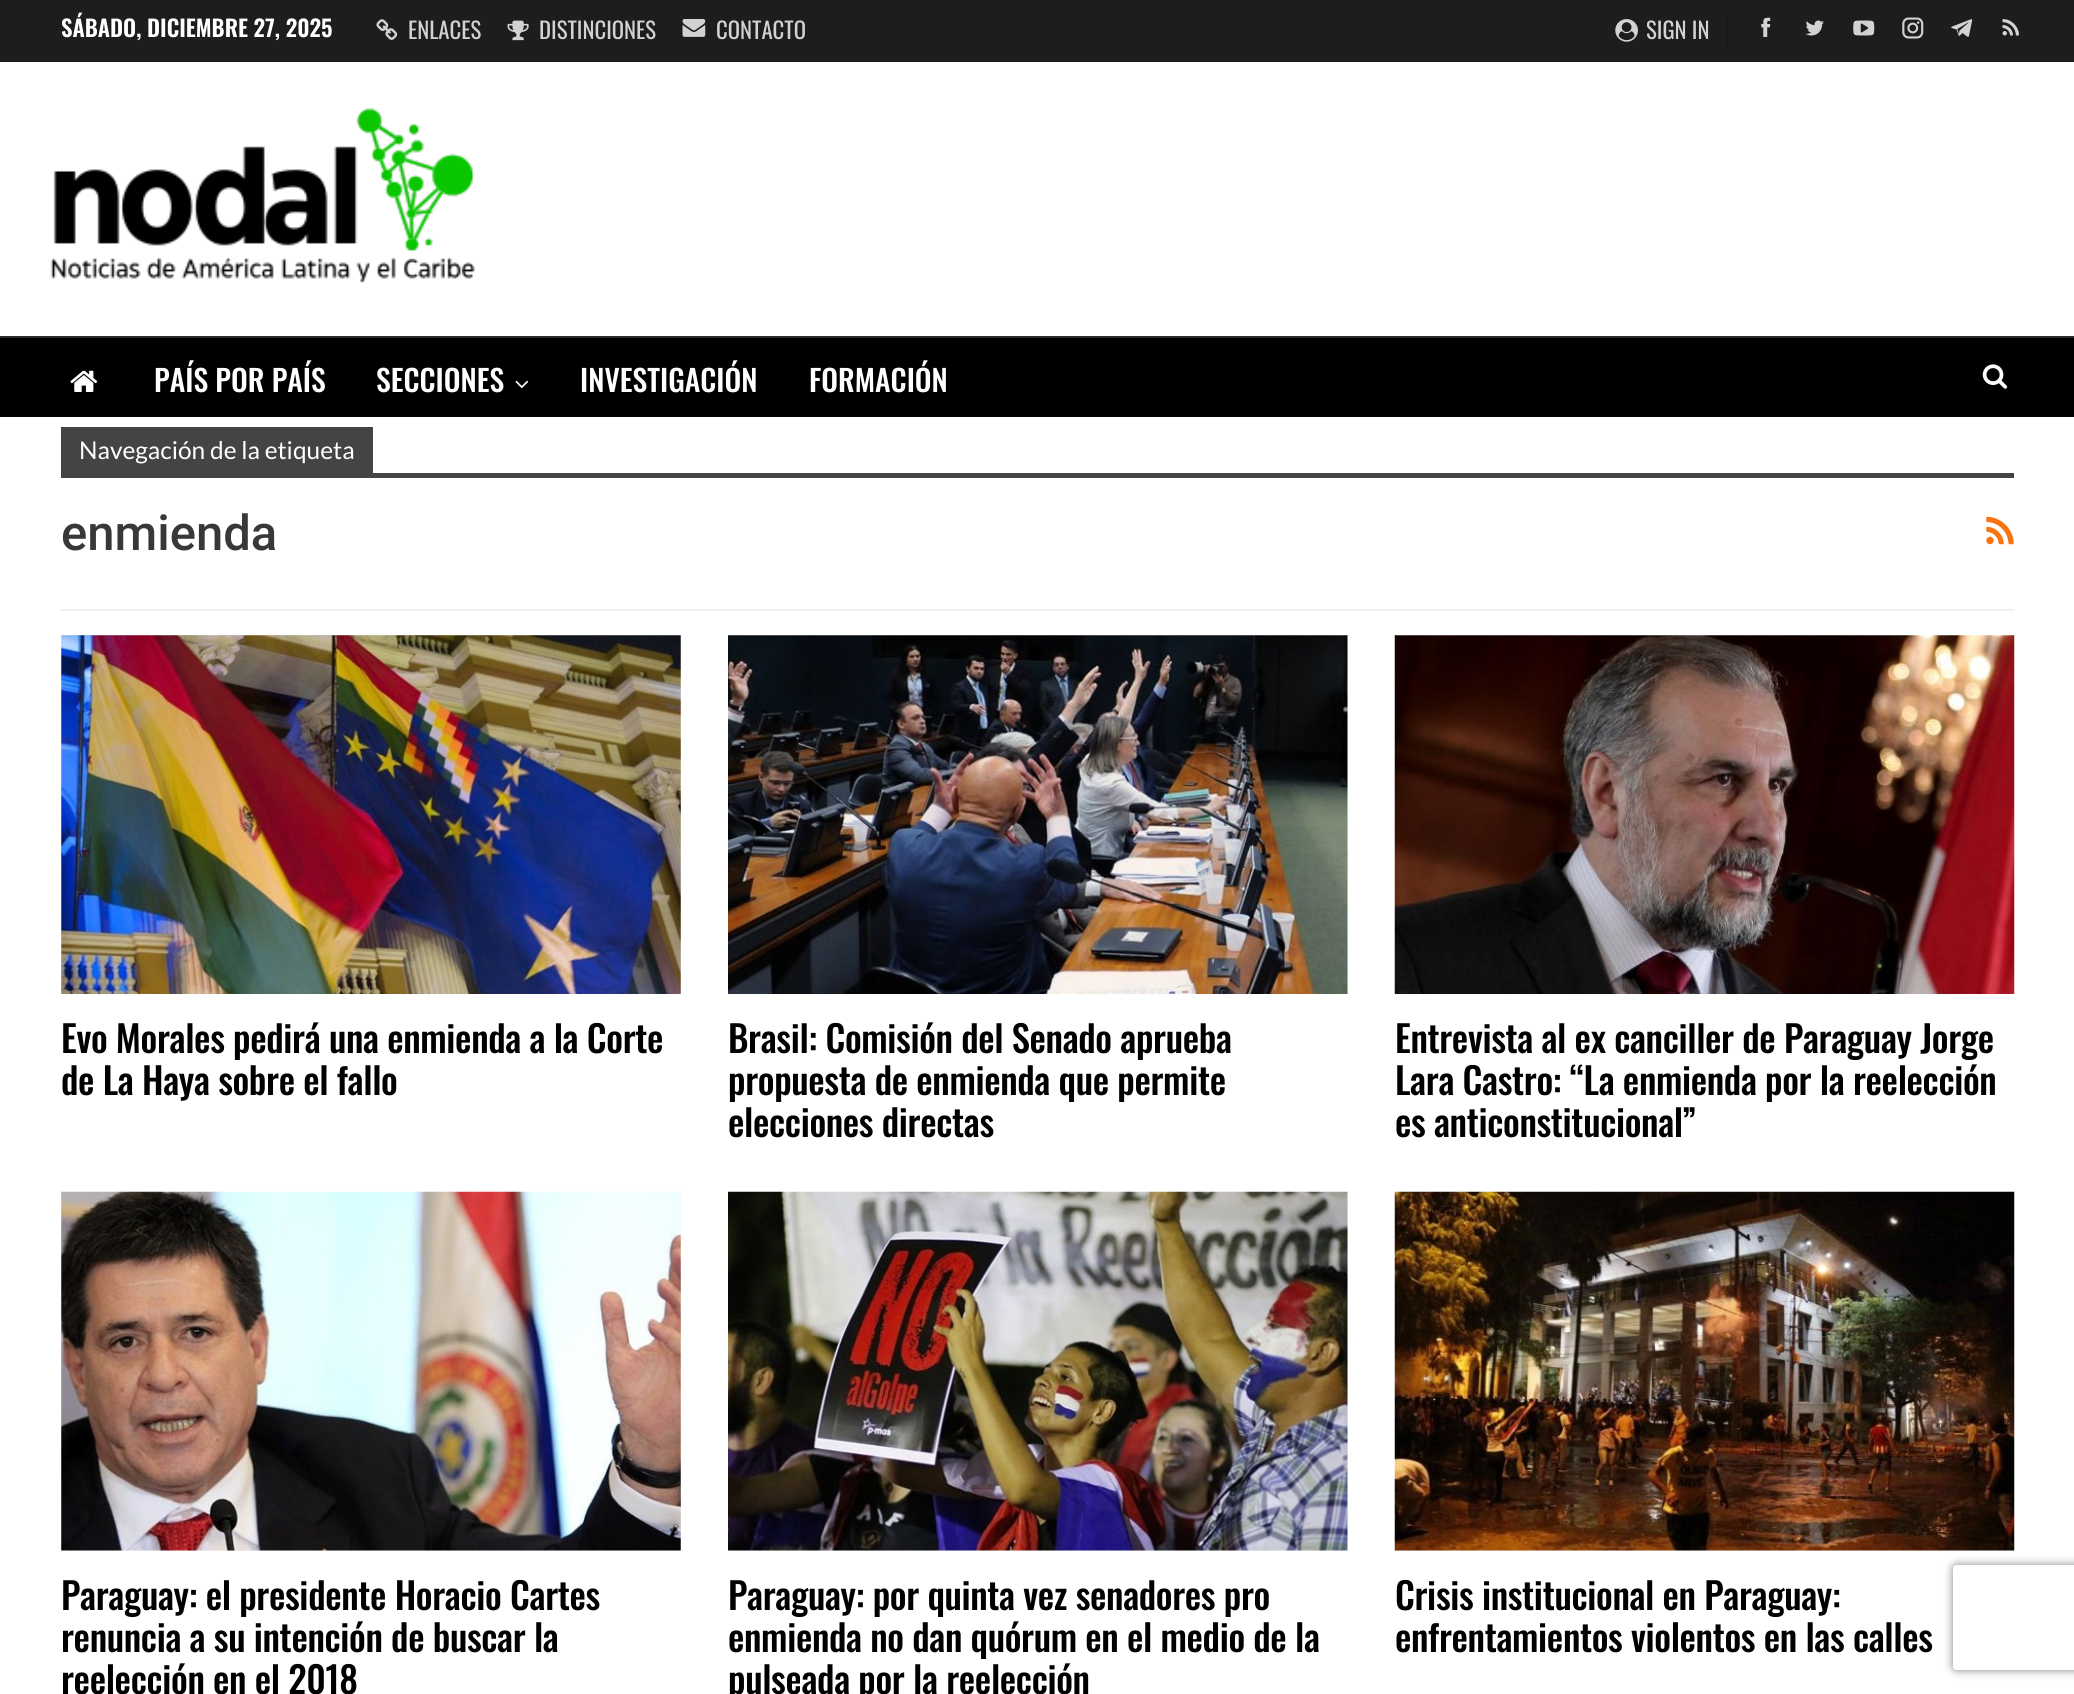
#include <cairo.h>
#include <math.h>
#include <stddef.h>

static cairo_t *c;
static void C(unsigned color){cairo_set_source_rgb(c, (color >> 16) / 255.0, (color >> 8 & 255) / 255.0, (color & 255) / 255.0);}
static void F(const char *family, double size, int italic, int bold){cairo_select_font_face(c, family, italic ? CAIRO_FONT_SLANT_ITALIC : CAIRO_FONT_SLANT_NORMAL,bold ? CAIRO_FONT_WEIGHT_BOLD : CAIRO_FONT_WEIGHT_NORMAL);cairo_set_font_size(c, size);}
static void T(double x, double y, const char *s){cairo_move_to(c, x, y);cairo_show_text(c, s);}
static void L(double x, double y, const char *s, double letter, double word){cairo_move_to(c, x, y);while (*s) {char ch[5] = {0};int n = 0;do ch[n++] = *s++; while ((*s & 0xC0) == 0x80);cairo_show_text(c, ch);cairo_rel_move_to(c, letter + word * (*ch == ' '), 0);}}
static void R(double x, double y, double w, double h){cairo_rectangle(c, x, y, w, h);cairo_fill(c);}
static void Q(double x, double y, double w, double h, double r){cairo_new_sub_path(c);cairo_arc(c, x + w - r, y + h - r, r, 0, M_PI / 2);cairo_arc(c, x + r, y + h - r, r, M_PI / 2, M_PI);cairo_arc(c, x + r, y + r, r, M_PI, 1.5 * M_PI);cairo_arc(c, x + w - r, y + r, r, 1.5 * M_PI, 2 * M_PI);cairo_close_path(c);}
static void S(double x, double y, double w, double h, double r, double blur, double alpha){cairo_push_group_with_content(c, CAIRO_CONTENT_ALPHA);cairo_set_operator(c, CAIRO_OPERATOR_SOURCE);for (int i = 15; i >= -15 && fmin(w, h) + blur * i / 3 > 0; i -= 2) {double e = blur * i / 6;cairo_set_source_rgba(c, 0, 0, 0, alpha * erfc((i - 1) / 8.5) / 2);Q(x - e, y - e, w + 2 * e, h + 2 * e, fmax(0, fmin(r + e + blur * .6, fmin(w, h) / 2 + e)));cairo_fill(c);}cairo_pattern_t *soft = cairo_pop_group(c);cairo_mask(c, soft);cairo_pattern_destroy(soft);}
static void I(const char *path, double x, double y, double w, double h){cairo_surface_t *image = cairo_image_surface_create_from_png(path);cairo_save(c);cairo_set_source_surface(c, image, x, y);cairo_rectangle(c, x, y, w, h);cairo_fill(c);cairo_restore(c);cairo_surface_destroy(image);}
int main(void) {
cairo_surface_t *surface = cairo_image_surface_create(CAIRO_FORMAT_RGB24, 2074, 1694);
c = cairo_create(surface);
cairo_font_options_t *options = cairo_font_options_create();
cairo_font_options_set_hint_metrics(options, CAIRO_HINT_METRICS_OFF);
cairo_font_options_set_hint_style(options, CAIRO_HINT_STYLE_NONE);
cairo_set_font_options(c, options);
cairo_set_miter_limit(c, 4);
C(0xffffff);
cairo_paint(c);
C(0x1d1d1d);
R(0,0,2074,62);
F("Oswald SemiBold",22.75,0,0);
C(0xffffff);
T(61,37,"SÁBADO, DICIEMBRE 27, 2025");
I("1.png",376,19,22,21);
F("Oswald",22.75,0,0);
C(0xd2d2d2);
T(408,39,"ENLACES");
I("2.png",507,20,22,21);
T(539,39,"DISTINCIONES");
I("3.png",682,19,24,18);
T(716,39,"CONTACTO");
I("4.png",1615,19,23,23);
T(1646,39,"SIGN IN");
C(0x191919);
R(1726,14,2,32);
I("5.png",1761,17,10,20);
I("6.png",1805,20,19,16);
I("7.png",1853,20,22,16);
I("8.png",1902,17,22,22);
I("9.png",1951,19,22,18);
I("10.png",2002,19,17,17);
I("11.png",50,108,425,175);
C(0x000000);
R(0,338,2074,79);
C(0x2a2a2a);
R(0,336,2074,2);
I("12.png",70,370,28,22);
F("Oswald Medium",29.75,0,0);
C(0xffffff);
T(154,392,"PAÍS POR PAÍS");
T(376,392,"SECCIONES");
I("13.png",515,380,14,9);
T(580,392,"INVESTIGACIÓN");
T(809,392,"FORMACIÓN");
I("14.png",1982,364,26,25);
C(0xf0f0f0);
R(61,609,1953,2);
C(0x444444);
R(61,427,312,46);
F("Lato",24.5,0,0);
C(0xffffff);
T(79,459,"Navegación de la etiqueta");
C(0x444444);
R(61,473,1953,5);
F("Roboto Medium",49,0,0);
C(0x383838);
T(61,550,"enmienda");
I("15.png",1986,516,28,29);
C(0xf5f5f5);
R(61,635,620,359);
I("16.png",61,635,620,359);
F("Oswald Medium",36.75,0,0);
C(0x000000);
L(61,1053,"Evo Morales pedirá una enmienda a la Corte",-.35,0);
L(61,1095,"de La Haya sobre el fallo",-.35,0);
C(0xf5f5f5);
R(728,635,620,359);
I("17.png",728,635,620,359);
C(0x000000);
L(728,1053,"Brasil: Comisión del Senado aprueba",-.35,0);
L(728,1095,"propuesta de enmienda que permite",-.35,0);
L(728,1137,"elecciones directas",-.35,0);
I("18.png",1394,635,621,359);
L(1395,1053,"Entrevista al ex canciller de Paraguay Jorge",-.35,0);
L(1395,1095,"Lara Castro: “La enmienda por la reelección",-.35,0);
L(1395,1137,"es anticonstitucional”",-.35,0);
C(0xf5f5f5);
R(61,1192,620,359);
I("19.png",61,1191,620,360);
C(0x000000);
L(61,1610,"Paraguay: el presidente Horacio Cartes",-.35,0);
L(61,1652,"renuncia a su intención de buscar la",-.35,0);
L(61,1694,"reelección en el 2018",-.35,0);
C(0xf5f5f5);
R(728,1192,620,359);
I("20.png",728,1191,620,360);
C(0x000000);
L(728,1610,"Paraguay: por quinta vez senadores pro",-.35,0);
L(728,1652,"enmienda no dan quórum en el medio de la",-.35,0);
L(728,1694,"pulseada por la reelección",-.35,0);
C(0xf5f5f5);
R(1395,1550,619,1);
I("21.png",1394,1191,621,360);
C(0x000000);
L(1395,1610,"Crisis institucional en Paraguay:",-.35,0);
L(1395,1652,"enfrentamientos violentos en las calles",-.35,0);
cairo_save(c);
cairo_set_fill_rule(c,CAIRO_FILL_RULE_EVEN_ODD);
cairo_new_path(c);
cairo_move_to(c,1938,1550);
cairo_line_to(c,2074,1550);
cairo_line_to(c,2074,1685);
cairo_line_to(c,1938,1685);
cairo_close_path(c);
cairo_move_to(c,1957,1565);
cairo_line_to(c,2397,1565);
cairo_curve_to(c,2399,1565,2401,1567,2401,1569);
cairo_line_to(c,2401,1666);
cairo_curve_to(c,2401,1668,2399,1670,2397,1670);
cairo_line_to(c,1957,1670);
cairo_curve_to(c,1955,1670,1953,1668,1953,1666);
cairo_line_to(c,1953,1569);
cairo_curve_to(c,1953,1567,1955,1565,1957,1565);
cairo_close_path(c);
cairo_clip(c);
C(0x808080);
S(1953,1565,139,105,4,4.5,1);
cairo_restore(c);
cairo_surface_write_to_png(surface, "o.png");
cairo_font_options_destroy(options);
cairo_destroy(c);
cairo_surface_destroy(surface);
return 0;
}
